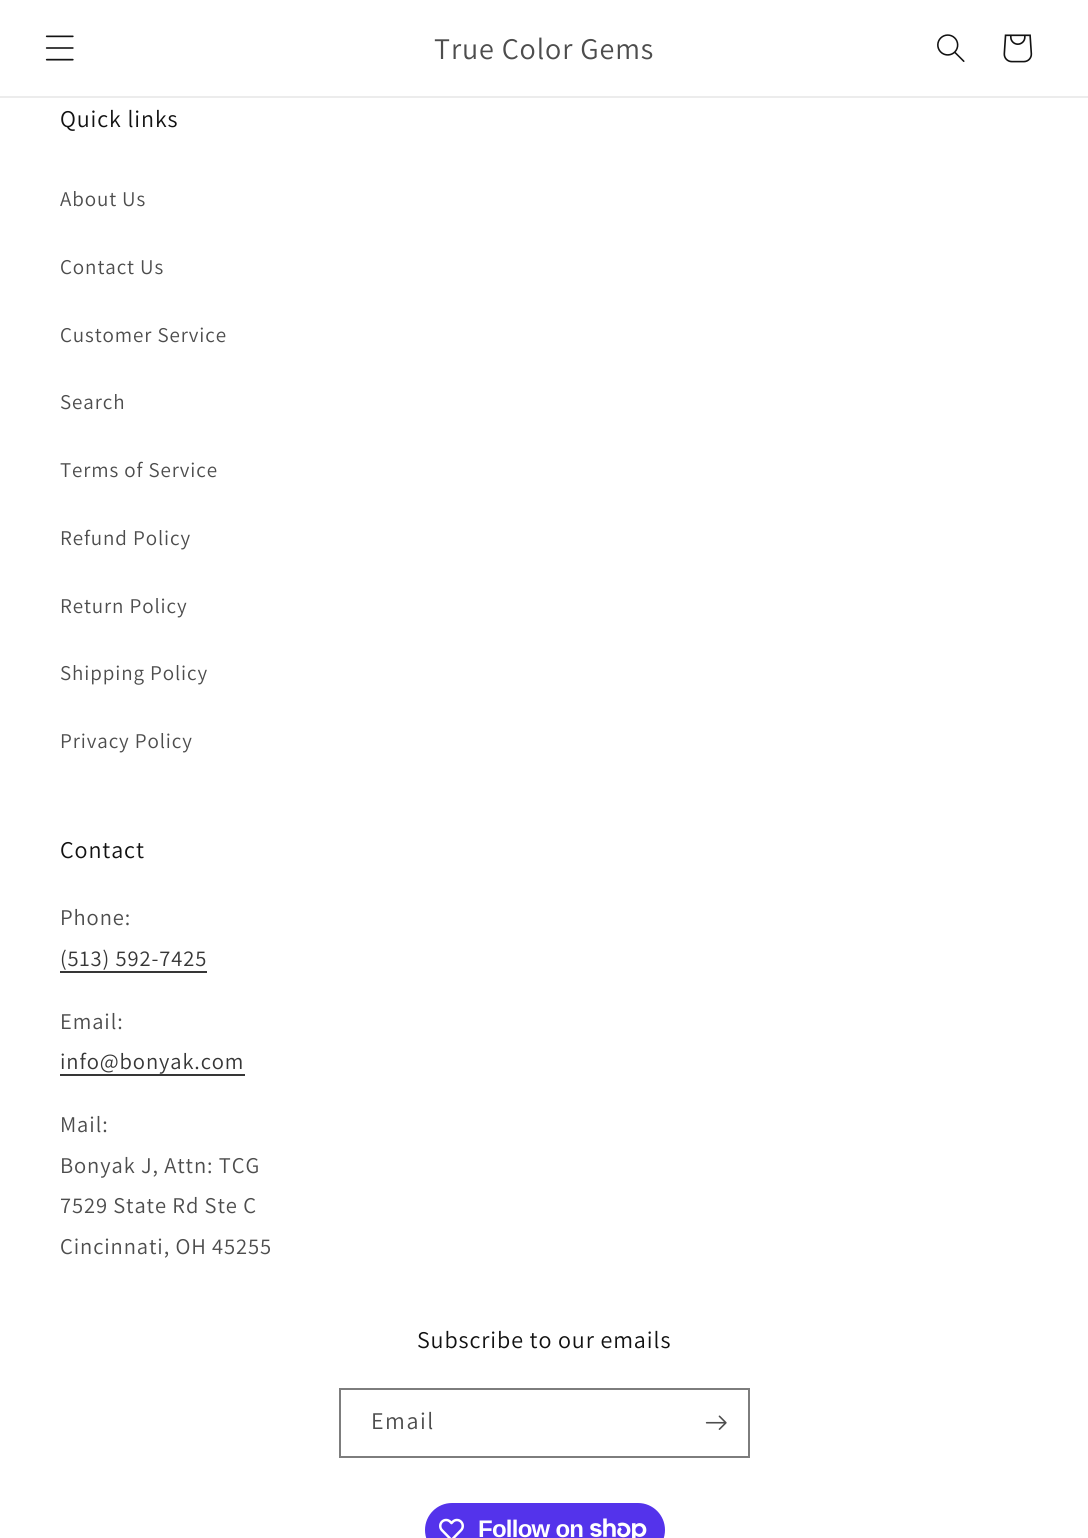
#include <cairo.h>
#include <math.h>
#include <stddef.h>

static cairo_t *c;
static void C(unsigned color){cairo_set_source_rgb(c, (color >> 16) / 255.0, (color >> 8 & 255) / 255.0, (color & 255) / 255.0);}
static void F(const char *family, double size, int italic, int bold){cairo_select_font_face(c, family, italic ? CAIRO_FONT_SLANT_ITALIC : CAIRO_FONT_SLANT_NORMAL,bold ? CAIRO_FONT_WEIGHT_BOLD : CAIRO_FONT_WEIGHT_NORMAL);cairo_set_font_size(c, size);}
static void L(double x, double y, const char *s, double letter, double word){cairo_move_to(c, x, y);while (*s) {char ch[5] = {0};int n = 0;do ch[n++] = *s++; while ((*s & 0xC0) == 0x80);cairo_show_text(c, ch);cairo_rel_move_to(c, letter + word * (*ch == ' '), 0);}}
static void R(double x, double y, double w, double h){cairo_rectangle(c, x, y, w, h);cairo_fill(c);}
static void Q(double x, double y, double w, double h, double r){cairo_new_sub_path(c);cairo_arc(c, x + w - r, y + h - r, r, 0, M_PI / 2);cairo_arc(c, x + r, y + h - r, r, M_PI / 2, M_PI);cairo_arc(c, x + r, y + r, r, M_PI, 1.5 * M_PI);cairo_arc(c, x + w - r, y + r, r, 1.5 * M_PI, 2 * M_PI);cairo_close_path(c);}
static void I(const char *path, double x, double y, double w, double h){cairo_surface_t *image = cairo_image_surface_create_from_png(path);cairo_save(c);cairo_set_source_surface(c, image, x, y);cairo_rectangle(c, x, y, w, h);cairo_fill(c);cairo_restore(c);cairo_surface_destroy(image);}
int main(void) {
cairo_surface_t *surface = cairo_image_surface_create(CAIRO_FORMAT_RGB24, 1088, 1538);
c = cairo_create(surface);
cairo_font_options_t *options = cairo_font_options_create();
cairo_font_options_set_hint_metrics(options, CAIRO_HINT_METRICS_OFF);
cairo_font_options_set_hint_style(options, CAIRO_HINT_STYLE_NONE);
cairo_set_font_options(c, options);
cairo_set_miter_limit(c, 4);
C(0xffffff);
cairo_paint(c);
C(0xececec);
R(0,96,1088,2);
I("1.png",45,35,29,26);
F("Assistant",30,0,0);
C(0x4d4d4d);
L(434,59,"True Color Gems",.9,0);
I("2.png",937,34,28,28);
I("3.png",1003,34,30,29);
F("Assistant",24,0,0);
C(0x121212);
L(60,127,"Quick links",.9,0);
F("Assistant",21,0,0);
C(0x4d4d4d);
L(60,206,"About Us",.9,0);
L(60,274,"Contact Us",.9,0);
L(60,342,"Customer Service",.9,0);
L(60,409,"Search",.9,0);
L(60,477,"Terms of Service",.9,0);
L(60,545,"Refund Policy",.9,0);
L(60,613,"Return Policy",.9,0);
L(60,680,"Shipping Policy",.9,0);
L(60,748,"Privacy Policy",.9,0);
F("Assistant",24,0,0);
C(0x121212);
L(60,858,"Contact",.9,0);
F("Assistant",22.5,0,0);
C(0x4d4d4d);
L(60,925,"Phone:",.9,0);
C(0x363636);
L(60,966,"(513) 592-7425",.9,0);
R(60,971,147,2);
C(0x4d4d4d);
L(60,1029,"Email:",.9,0);
C(0x363636);
L(60,1069,"info@bonyak.com",.9,0);
R(60,1074,185,2);
C(0x4d4d4d);
L(60,1132,"Mail:",.9,0);
L(60,1173,"Bonyak J, Attn: TCG",.9,0);
L(60,1213,"7529 State Rd Ste C",.9,0);
L(60,1254,"Cincinnati, OH 45255",.9,0);
F("Assistant",24,0,0);
C(0x121212);
L(417,1348,"Subscribe to our emails",.9,0);
cairo_rectangle(c,340,1389,409,68);
C(0x7d7d7d);
cairo_stroke(c);
C(0x4d4d4d);
L(371,1429,"Email",1.5,0);
I("4.png",705,1415,22,15);
C(0x5433eb);
Q(425,1503,240,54,27);
cairo_fill(c);
I("5.png",439,1518,25,20);
F("Liberation Sans",24,0,1);
C(0xffffff);
L(478,1537,"Follow on",-.75,0);
I("6.png",590,1518,57,20);
cairo_surface_write_to_png(surface, "o.png");
cairo_font_options_destroy(options);
cairo_destroy(c);
cairo_surface_destroy(surface);
return 0;
}
